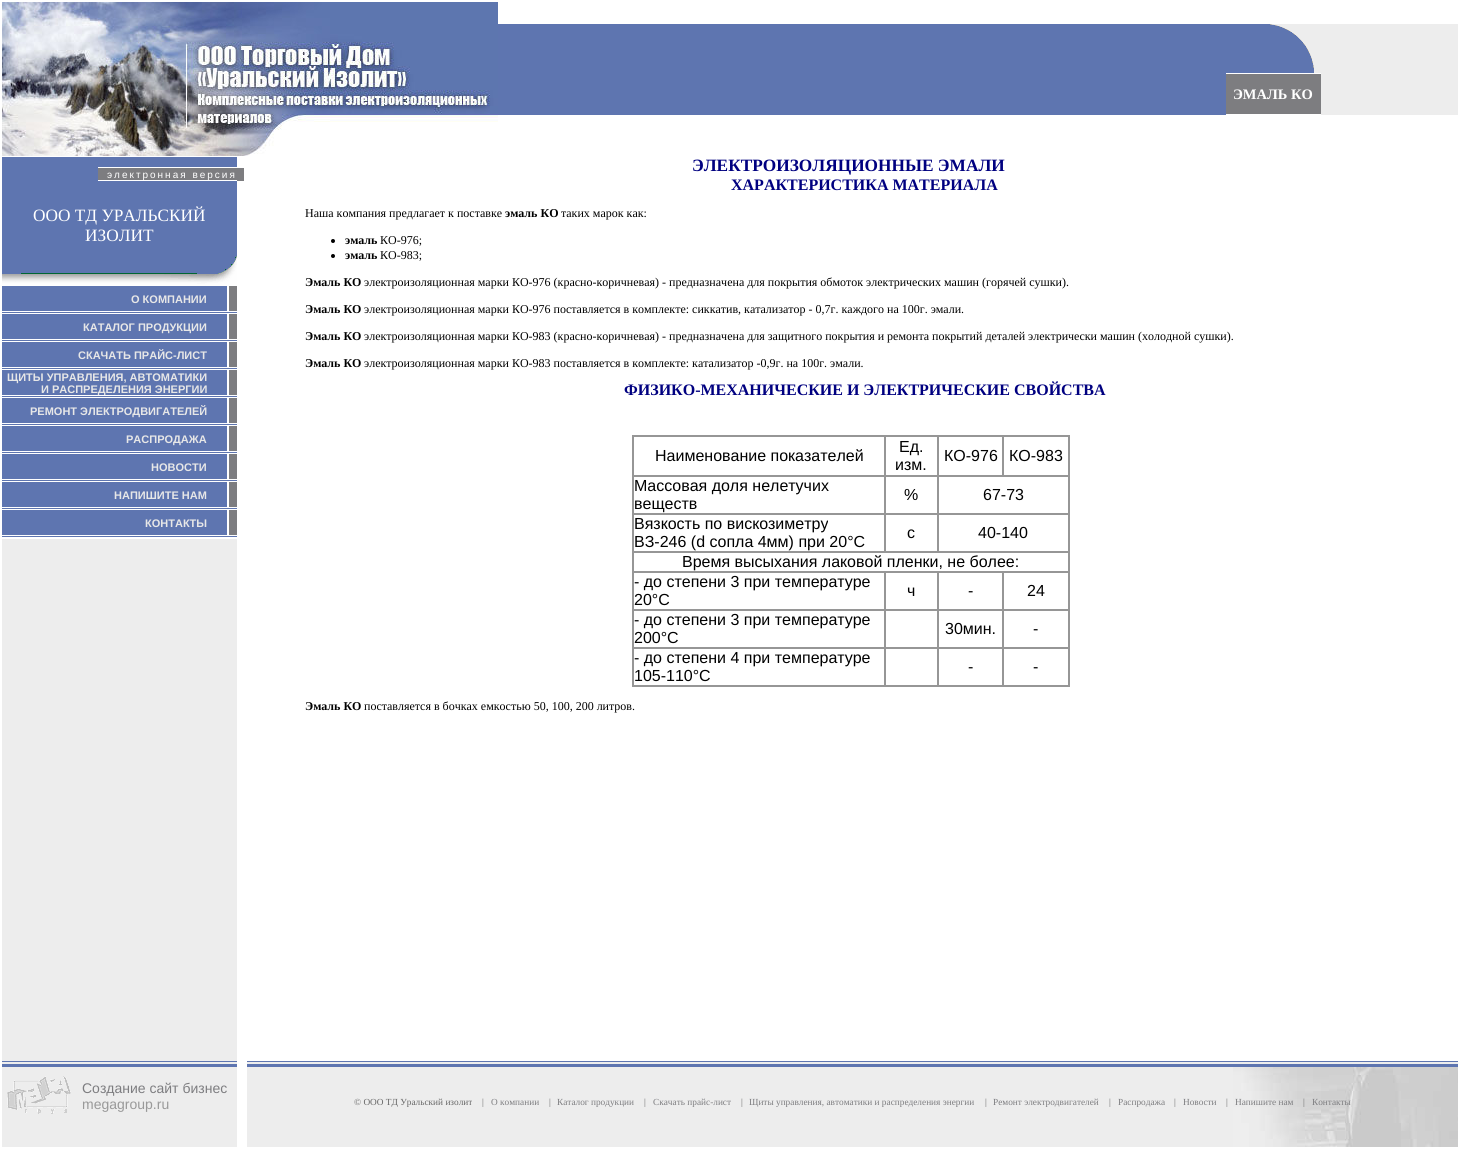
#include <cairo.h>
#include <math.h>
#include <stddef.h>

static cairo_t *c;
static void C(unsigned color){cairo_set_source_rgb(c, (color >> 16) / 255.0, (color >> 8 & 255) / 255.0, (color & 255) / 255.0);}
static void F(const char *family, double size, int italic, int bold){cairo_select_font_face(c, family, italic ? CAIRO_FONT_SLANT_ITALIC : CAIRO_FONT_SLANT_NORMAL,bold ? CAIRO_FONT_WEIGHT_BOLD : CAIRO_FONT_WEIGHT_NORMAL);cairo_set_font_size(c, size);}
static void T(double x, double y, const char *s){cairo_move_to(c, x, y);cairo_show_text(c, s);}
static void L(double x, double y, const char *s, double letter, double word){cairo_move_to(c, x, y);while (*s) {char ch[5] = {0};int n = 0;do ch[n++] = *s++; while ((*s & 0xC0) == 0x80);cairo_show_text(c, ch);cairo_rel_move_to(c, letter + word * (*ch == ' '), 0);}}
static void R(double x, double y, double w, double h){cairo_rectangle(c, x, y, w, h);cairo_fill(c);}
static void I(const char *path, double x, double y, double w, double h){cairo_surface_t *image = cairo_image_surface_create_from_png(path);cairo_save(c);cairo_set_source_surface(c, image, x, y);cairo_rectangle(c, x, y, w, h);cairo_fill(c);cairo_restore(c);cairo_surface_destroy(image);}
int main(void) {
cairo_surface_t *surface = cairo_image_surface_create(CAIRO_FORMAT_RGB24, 1460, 1149);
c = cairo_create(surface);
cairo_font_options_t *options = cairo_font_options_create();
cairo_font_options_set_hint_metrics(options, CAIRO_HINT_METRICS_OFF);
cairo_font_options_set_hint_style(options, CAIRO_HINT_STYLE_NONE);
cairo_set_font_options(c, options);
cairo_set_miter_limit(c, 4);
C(0xffffff);
cairo_paint(c);
I("1.png",2,2,496,154);
C(0x5e75b0);
R(498,24,816,91);
I("2.png",1270,24,44,44);
C(0xffffff);
R(1226,73,88,1);
C(0x7d7d80);
R(1226,74,88,40);
F("Liberation Serif",14.5,0,1);
C(0xffffff);
T(1233,99,"ЭМАЛЬ КО");
R(1226,114,88,1);
C(0xededed);
R(1314,24,144,91);
C(0xffffff);
R(1314,73,7,1);
C(0x7d7d80);
R(1314,74,7,40);
C(0xffffff);
R(1314,114,7,1);
C(0x5e75b0);
R(2,157,235,117);
C(0xffffff);
R(98,167,139,1);
C(0x7d7d80);
R(98,168,139,12);
C(0xffffff);
R(98,180,139,1);
F("Liberation Sans",10,0,0);
L(107,178,"электронная версия",2,0);
F("Liberation Serif",17.3,0,0);
T(33,221,"ООО ТД УРАЛЬСКИЙ");
T(85,241,"ИЗОЛИТ");
I("3.png",2,256,235,30);
C(0x5e75b0);
R(2,286,225,25);
F("Liberation Sans",11,0,1);
C(0xe7e7e7);
T(131,303,"О КОМПАНИИ");
C(0x7d7d80);
R(229,286,8,25);
C(0x5e75b0);
R(2,312,235,1);
R(2,314,225,25);
C(0xe7e7e7);
T(83,331,"КАТАЛОГ ПРОДУКЦИИ");
C(0x7d7d80);
R(229,314,8,25);
C(0x5e75b0);
R(2,340,235,1);
R(2,342,225,25);
C(0xe7e7e7);
T(78,359,"СКАЧАТЬ ПРАЙС-ЛИСТ");
C(0x7d7d80);
R(229,342,8,25);
C(0x5e75b0);
R(2,368,235,1);
R(2,370,225,25);
C(0xe7e7e7);
T(7,381,"ЩИТЫ УПРАВЛЕНИЯ, АВТОМАТИКИ");
T(41,393,"И РАСПРЕДЕЛЕНИЯ ЭНЕРГИИ");
C(0x7d7d80);
R(229,370,8,25);
C(0x5e75b0);
R(2,396,235,1);
R(2,398,225,25);
C(0xe7e7e7);
T(30,415,"РЕМОНТ ЭЛЕКТРОДВИГАТЕЛЕЙ");
C(0x7d7d80);
R(229,398,8,25);
C(0x5e75b0);
R(2,424,235,1);
R(2,426,225,25);
C(0xe7e7e7);
T(126,443,"РАСПРОДАЖА");
C(0x7d7d80);
R(229,426,8,25);
C(0x5e75b0);
R(2,452,235,1);
R(2,454,225,25);
C(0xe7e7e7);
T(151,471,"НОВОСТИ");
C(0x7d7d80);
R(229,454,8,25);
C(0x5e75b0);
R(2,480,235,1);
R(2,482,225,25);
C(0xe7e7e7);
T(114,499,"НАПИШИТЕ НАМ");
C(0x7d7d80);
R(229,482,8,25);
C(0x5e75b0);
R(2,508,235,1);
R(2,510,225,25);
C(0xe7e7e7);
T(145,527,"КОНТАКТЫ");
C(0x7d7d80);
R(229,510,8,25);
C(0x5e75b0);
R(2,536,235,1);
C(0xededed);
R(2,539,235,522);
C(0x7d7d80);
R(237,168,7,13);
F("Liberation Serif",17.3,0,1);
C(0x000080);
T(692,171,"ЭЛЕКТРОИЗОЛЯЦИОННЫЕ ЭМАЛИ");
F("Liberation Serif",16,0,1);
T(731,190,"ХАРАКТЕРИСТИКА МАТЕРИАЛА");
F("Liberation Serif",12,0,0);
C(0x000000);
T(305,217,"Наша компания предлагает к поставке");
F("Liberation Serif",12,0,1);
T(505,217,"эмаль КО");
F("Liberation Serif",12,0,0);
T(561,217,"таких марок как:");
cairo_new_path(c);
cairo_arc(c,333,241,2,0,2 * M_PI);
cairo_fill(c);
F("Liberation Serif",12,0,1);
T(345,244,"эмаль");
F("Liberation Serif",12,0,0);
T(380,244,"КО-976;");
cairo_new_path(c);
cairo_arc(c,333,256,2,0,2 * M_PI);
cairo_fill(c);
F("Liberation Serif",12,0,1);
T(345,259,"эмаль");
F("Liberation Serif",12,0,0);
T(380,259,"КО-983;");
F("Liberation Serif",12,0,1);
T(305,286,"Эмаль КО");
F("Liberation Serif",12,0,0);
T(364,286,"электроизоляционная марки КО-976 (красно-коричневая) - предназначена для покрытия обмоток электрических машин (горячей сушки).");
F("Liberation Serif",12,0,1);
T(305,313,"Эмаль КО");
F("Liberation Serif",12,0,0);
T(364,313,"электроизоляционная марки КО-976 поставляется в комплекте: сиккатив, катализатор - 0,7г. каждого на 100г. эмали.");
F("Liberation Serif",12,0,1);
T(305,340,"Эмаль КО");
F("Liberation Serif",12,0,0);
T(364,340,"электроизоляционная марки КО-983 (красно-коричневая) - предназначена для защитного покрытия и ремонта покрытий деталей электрически машин (холодной сушки).");
F("Liberation Serif",12,0,1);
T(305,367,"Эмаль КО");
F("Liberation Serif",12,0,0);
T(364,367,"электроизоляционная марки КО-983 поставляется в комплекте: катализатор -0,9г. на 100г. эмали.");
F("Liberation Serif",16,0,1);
C(0x000080);
T(624,395,"ФИЗИКО-МЕХАНИЧЕСКИЕ И ЭЛЕКТРИЧЕСКИЕ СВОЙСТВА");
C(0x969696);
R(1002,435,68,2);
R(937,475,133,2);
R(1002,435,2,42);
R(937,435,67,2);
R(937,513,133,2);
R(632,551,438,2);
R(937,513,2,40);
R(937,475,2,40);
R(937,435,2,42);
R(884,435,55,2);
R(884,513,2,40);
R(884,513,55,2);
R(884,475,2,40);
R(884,475,55,2);
R(884,435,2,42);
R(632,435,254,2);
R(1068,571,2,116);
R(1068,551,2,22);
R(1002,685,68,2);
R(1002,647,2,40);
R(1002,647,68,2);
R(1002,609,2,40);
R(1002,609,68,2);
R(1002,571,2,40);
R(937,685,67,2);
R(937,647,2,40);
R(937,647,67,2);
R(937,609,2,40);
R(937,609,67,2);
R(937,571,2,40);
R(884,685,55,2);
R(884,647,2,40);
R(884,647,55,2);
R(884,609,2,40);
R(884,609,55,2);
R(884,571,2,40);
R(632,685,254,2);
R(632,647,2,40);
R(632,647,254,2);
R(632,609,2,40);
R(632,609,254,2);
R(632,571,2,40);
R(632,571,438,2);
R(632,513,2,60);
R(632,513,254,2);
R(632,475,2,40);
R(632,475,254,2);
R(632,435,2,42);
F("Liberation Sans",16,0,0);
C(0x000000);
T(655,461,"Наименование показателей");
T(899,452,"Ед.");
T(895,470,"изм.");
T(944,461,"КО-976");
C(0x969696);
R(1068,513,2,40);
R(1068,475,2,40);
R(1068,435,2,42);
C(0x000000);
T(1009,461,"КО-983");
T(634,491,"Массовая доля нелетучих");
T(634,509,"веществ");
T(904,500,"%");
T(983,500,"67-73");
T(634,529,"Вязкость по вискозиметру");
T(634,547,"ВЗ-246 (d сопла 4мм) при 20°С");
T(907,538,"с");
T(978,538,"40-140");
T(682,567,"Время высыхания лаковой пленки, не более:");
T(634,587,"- до степени 3 при температуре");
T(634,605,"20°С");
T(907,596,"ч");
T(968,596,"-");
T(1027,596,"24");
T(634,625,"- до степени 3 при температуре");
T(634,643,"200°С");
T(945,634,"30мин.");
T(1033,634,"-");
T(634,663,"- до степени 4 при температуре");
T(634,681,"105-110°С");
T(968,672,"-");
T(1033,672,"-");
F("Liberation Serif",12,0,1);
T(305,710,"Эмаль КО");
F("Liberation Serif",12,0,0);
T(364,710,"поставляется в бочках емкостью 50, 100, 200 литров.");
C(0xededed);
R(2,1062,235,85);
C(0x5e75b0);
R(2,1061,235,1);
R(2,1064,235,3);
I("4.png",7,1076,64,38);
F("Liberation Sans",14,0,0);
C(0x7d7d80);
T(82,1093,"Создание сайт бизнес");
C(0x999999);
T(82,1109,"megagroup.ru");
C(0xededed);
R(247,1062,1211,85);
C(0x5e75b0);
R(247,1061,1211,1);
R(247,1064,1211,3);
I("5.png",1233,1067,225,80);
F("Liberation Serif",9.3,0,0);
C(0x666666);
T(354,1105,"© ООО ТД Уральский изолит");
T(482,1105,"|");
C(0x7d7d80);
T(491,1105,"О компании");
C(0x666666);
T(549,1105,"|");
C(0x7d7d80);
T(557,1105,"Каталог продукции");
C(0x666666);
T(644,1105,"|");
C(0x7d7d80);
T(653,1105,"Скачать прайс-лист");
C(0x666666);
T(741,1105,"|");
C(0x7d7d80);
T(749,1105,"Щиты управления, автоматики и распределения энергии");
C(0x666666);
T(985,1105,"|");
C(0x7d7d80);
T(993,1105,"Ремонт электродвигателей");
C(0x666666);
T(1109,1105,"|");
C(0x7d7d80);
T(1118,1105,"Распродажа");
C(0x666666);
T(1174,1105,"|");
C(0x7d7d80);
T(1183,1105,"Новости");
C(0x666666);
T(1226,1105,"|");
C(0x7d7d80);
T(1235,1105,"Напишите нам");
C(0x666666);
T(1303,1105,"|");
C(0x7d7d80);
T(1312,1105,"Контакты");
cairo_surface_write_to_png(surface, "o.png");
cairo_font_options_destroy(options);
cairo_destroy(c);
cairo_surface_destroy(surface);
return 0;
}
